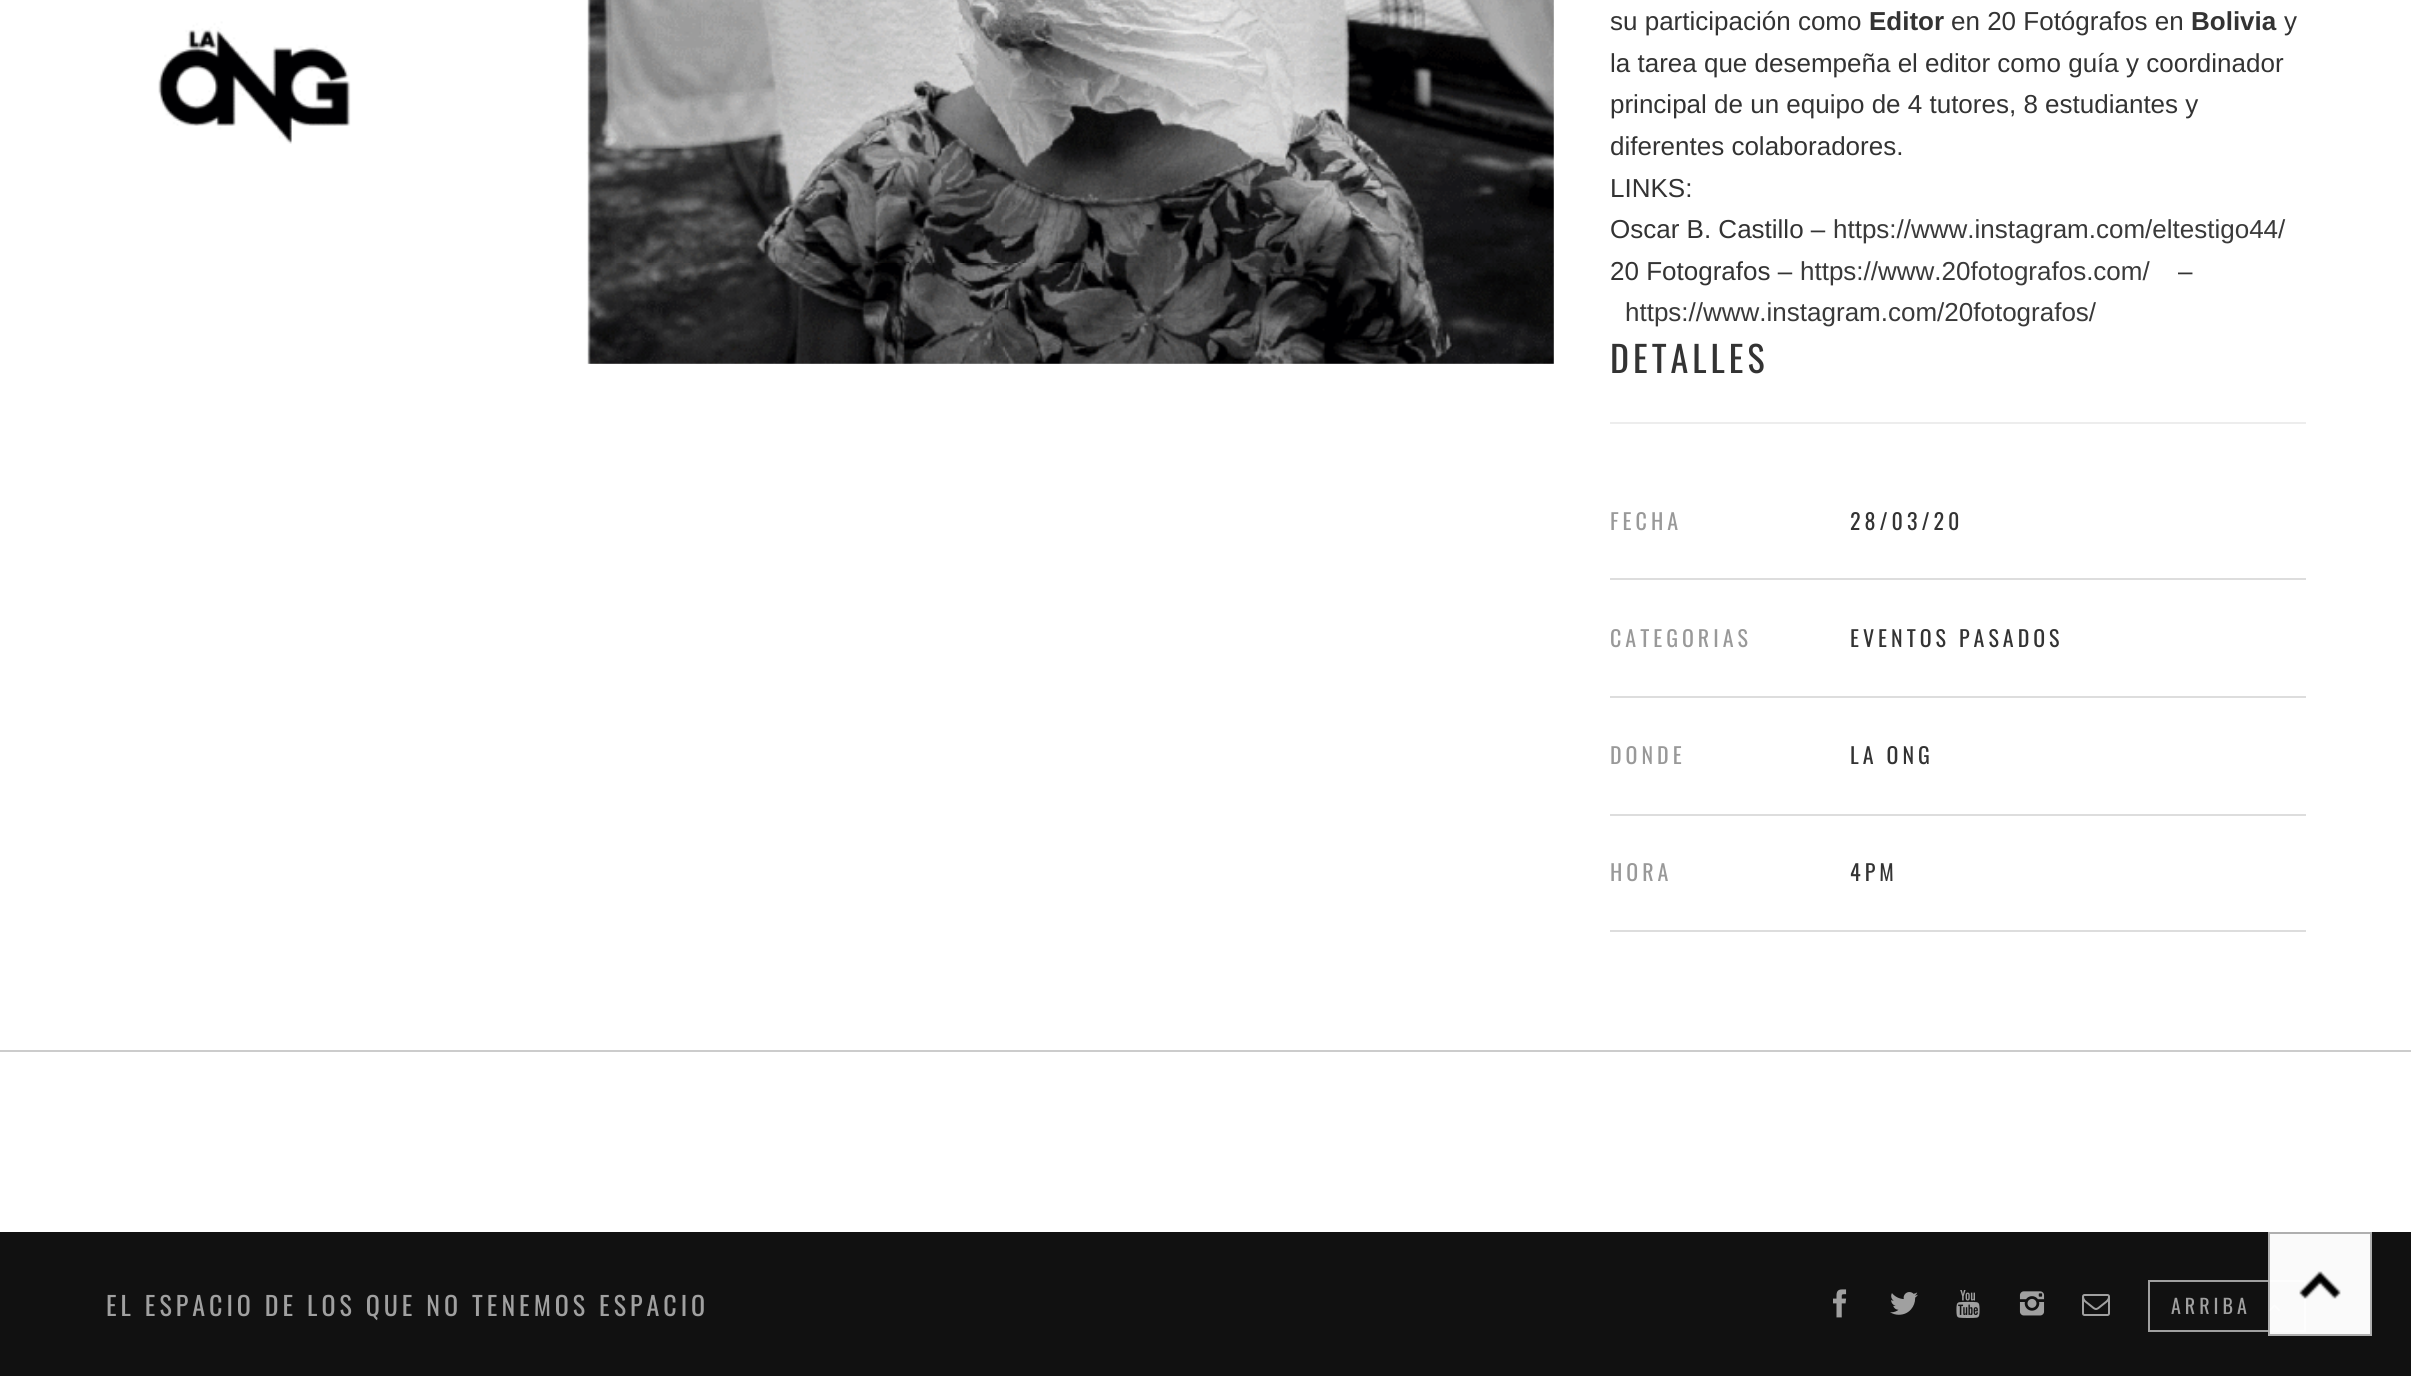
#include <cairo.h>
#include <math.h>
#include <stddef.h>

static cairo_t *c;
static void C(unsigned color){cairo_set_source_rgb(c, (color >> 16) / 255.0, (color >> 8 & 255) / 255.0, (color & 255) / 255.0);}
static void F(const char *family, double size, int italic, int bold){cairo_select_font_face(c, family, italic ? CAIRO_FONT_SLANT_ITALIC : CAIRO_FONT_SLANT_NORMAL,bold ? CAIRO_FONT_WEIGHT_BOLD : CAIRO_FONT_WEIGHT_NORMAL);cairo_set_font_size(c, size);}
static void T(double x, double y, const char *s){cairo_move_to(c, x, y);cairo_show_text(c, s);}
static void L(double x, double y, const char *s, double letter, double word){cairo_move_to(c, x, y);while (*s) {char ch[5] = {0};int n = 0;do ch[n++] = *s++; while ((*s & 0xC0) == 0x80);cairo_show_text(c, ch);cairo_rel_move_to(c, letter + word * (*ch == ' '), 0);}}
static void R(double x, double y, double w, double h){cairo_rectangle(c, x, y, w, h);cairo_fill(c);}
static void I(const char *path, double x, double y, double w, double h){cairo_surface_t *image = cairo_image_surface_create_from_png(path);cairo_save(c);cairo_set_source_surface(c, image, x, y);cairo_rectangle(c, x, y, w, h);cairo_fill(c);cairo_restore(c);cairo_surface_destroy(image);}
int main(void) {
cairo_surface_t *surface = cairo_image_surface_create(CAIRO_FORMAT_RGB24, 2411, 1376);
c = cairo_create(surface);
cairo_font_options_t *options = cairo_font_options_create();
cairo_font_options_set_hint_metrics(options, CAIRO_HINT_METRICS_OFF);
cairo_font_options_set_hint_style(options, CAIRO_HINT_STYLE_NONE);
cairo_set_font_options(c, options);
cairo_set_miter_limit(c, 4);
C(0xffffff);
cairo_paint(c);
I("1.png",158,0,1396,364);
F("Liberation Sans",26,0,0);
C(0x333333);
T(1610,30,"su participación como");
F("Liberation Sans",26,0,1);
T(1869,30,"Editor");
F("Liberation Sans",26,0,0);
T(1951,30,"en 20 Fotógrafos en");
F("Liberation Sans",26,0,1);
T(2191,30,"Bolivia");
F("Liberation Sans",26,0,0);
T(2284,30,"y");
T(1610,72,"la tarea que desempeña el editor como guía y coordinador");
T(1610,113,"principal de un equipo de 4 tutores, 8 estudiantes y");
T(1610,155,"diferentes colaboradores.");
T(1610,197,"LINKS:");
T(1610,238,"Oscar B. Castillo –");
C(0x3a3a3a);
T(1833,238,"https://www.instagram.com/eltestigo44/");
C(0x333333);
T(1610,280,"20 Fotografos –");
C(0x3a3a3a);
T(1800,280,"https://www.20fotografos.com/");
C(0x333333);
T(2178,280,"–");
C(0x3a3a3a);
T(1625,321,"https://www.instagram.com/20fotografos/");
C(0xededed);
R(1610,422,696,2);
F("Oswald",36,0,0);
C(0x333333);
L(1610,373,"DETALLES",4,0);
F("Oswald",22,0,0);
C(0x999999);
L(1610,530,"FECHA",4,0);
C(0xdddddd);
R(1610,578,696,2);
C(0x333333);
L(1850,530,"28/03/20",4,0);
C(0x999999);
L(1610,647,"CATEGORIAS",4,0);
C(0xdddddd);
R(1610,696,696,2);
C(0x333333);
L(1850,647,"EVENTOS PASADOS",4,0);
C(0x999999);
L(1610,764,"DONDE",4,0);
C(0xdddddd);
R(1610,814,696,2);
C(0x333333);
L(1850,764,"LA ONG",4,0);
C(0x999999);
L(1610,881,"HORA",4,0);
C(0xdddddd);
R(1610,930,696,2);
C(0x333333);
L(1850,881,"4PM",4,0);
C(0xcccccc);
R(0,1050,2411,2);
C(0x111111);
R(0,1232,2411,144);
F("Oswald",26,0,0);
C(0xa0a0a0);
L(106,1316,"EL ESPACIO DE LOS QUE NO TENEMOS ESPACIO",4,0);
I("2.png",1833,1289,14,29);
I("3.png",1890,1292,28,23);
I("4.png",1956,1290,24,28);
I("5.png",2019,1291,26,25);
I("6.png",2082,1294,28,22);
cairo_rectangle(c,2149,1281,156,50);
cairo_stroke(c);
F("Oswald",20,0,0);
L(2171,1314,"ARRIBA",4,0);
I("7.png",2269,1304,11,7);
cairo_set_source_rgba(c,1,1,1,0.98);
R(2268,1232,104,104);
I("8.png",2299,1271,42,28);
cairo_rectangle(c,2269,1233,102,102);
cairo_set_source_rgba(c,0,0,0,0.3);
cairo_stroke(c);
cairo_surface_write_to_png(surface, "o.png");
cairo_font_options_destroy(options);
cairo_destroy(c);
cairo_surface_destroy(surface);
return 0;
}
